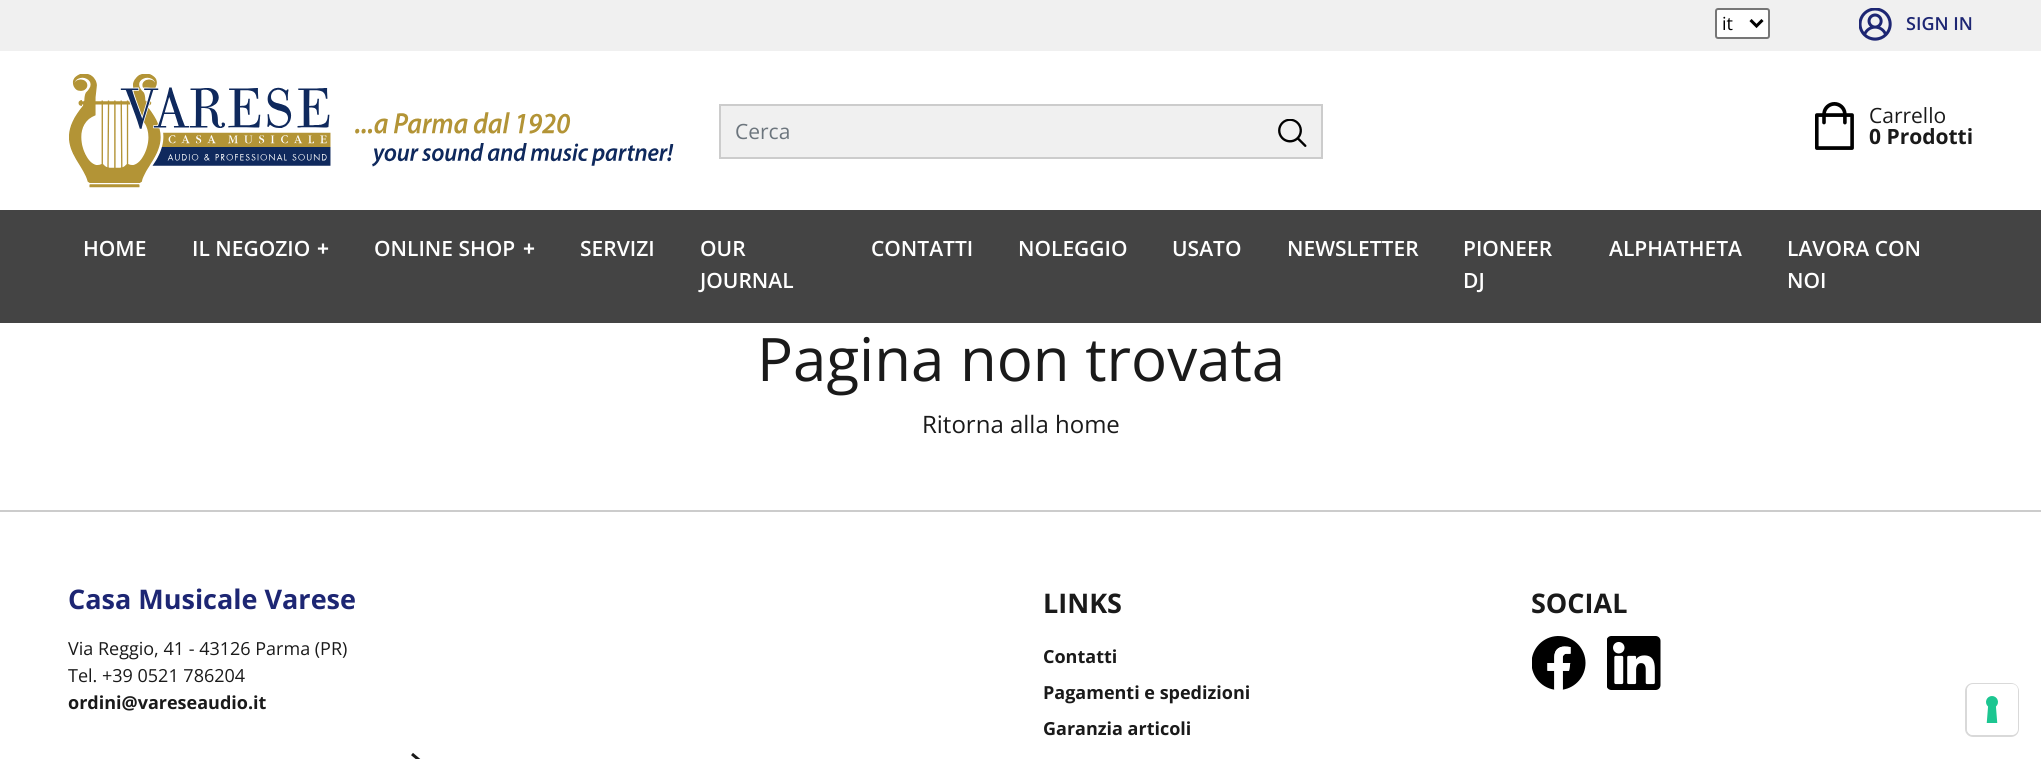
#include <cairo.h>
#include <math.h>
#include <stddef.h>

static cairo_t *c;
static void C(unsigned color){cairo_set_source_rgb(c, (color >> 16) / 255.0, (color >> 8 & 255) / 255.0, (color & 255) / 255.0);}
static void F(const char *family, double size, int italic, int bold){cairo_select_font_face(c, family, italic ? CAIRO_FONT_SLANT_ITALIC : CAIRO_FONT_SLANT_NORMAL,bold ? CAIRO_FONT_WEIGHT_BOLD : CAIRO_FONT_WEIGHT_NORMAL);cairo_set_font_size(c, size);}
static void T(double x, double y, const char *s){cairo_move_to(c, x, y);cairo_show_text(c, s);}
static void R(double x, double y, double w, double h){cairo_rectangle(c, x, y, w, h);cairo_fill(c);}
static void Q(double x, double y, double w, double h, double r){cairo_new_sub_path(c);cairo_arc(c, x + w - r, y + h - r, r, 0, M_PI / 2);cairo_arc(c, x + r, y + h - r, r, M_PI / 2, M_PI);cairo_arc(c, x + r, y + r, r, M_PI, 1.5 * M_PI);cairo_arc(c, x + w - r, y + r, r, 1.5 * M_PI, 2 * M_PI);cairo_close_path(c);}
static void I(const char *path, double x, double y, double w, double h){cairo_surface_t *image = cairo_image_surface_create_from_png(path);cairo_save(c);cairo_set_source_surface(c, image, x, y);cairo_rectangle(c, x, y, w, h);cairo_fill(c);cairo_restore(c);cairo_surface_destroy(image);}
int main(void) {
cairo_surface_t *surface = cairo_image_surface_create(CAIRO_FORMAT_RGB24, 2041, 759);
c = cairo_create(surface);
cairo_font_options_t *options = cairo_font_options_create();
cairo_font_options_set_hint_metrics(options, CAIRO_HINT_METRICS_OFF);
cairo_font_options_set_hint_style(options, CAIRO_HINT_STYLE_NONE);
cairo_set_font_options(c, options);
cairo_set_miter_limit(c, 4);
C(0xffffff);
cairo_paint(c);
C(0xf0f0f0);
R(0,0,2041,51);
C(0xffffff);
Q(1716,9,53,29,2);
cairo_fill_preserve(c);
C(0x767676);
cairo_stroke(c);
cairo_new_path(c);
cairo_move_to(c,1750.5,20);
cairo_line_to(c,1756.5,26);
cairo_line_to(c,1762.5,20);
C(0x000000);
cairo_set_line_width(c,3);
cairo_stroke(c);
F("Open Sans",18,0,0);
T(1722,30,"it");
I("1.png",1859,8,33,33);
F("Open Sans SemiBold",18,0,0);
C(0x1d2673);
T(1906,30,"SIGN IN");
I("2.png",69,74,605,114);
C(0xf0f0f0);
cairo_rectangle(c,720,105,602,53);
cairo_fill_preserve(c);
C(0xcccccc);
cairo_set_line_width(c,2);
cairo_stroke(c);
F("Open Sans",21,0,0);
C(0x6c757d);
T(735,139,"Cerca");
I("3.png",1278,119,29,28);
I("4.png",1815,102,39,48);
C(0x1a1a1a);
T(1869,123,"Carrello");
F("Open Sans",21,0,1);
T(1869,144,"0 Prodotti");
C(0x444444);
R(0,210,2041,113);
F("Open Sans SemiBold",21,0,0);
C(0xffffff);
T(83,256,"HOME");
T(192,256,"IL NEGOZIO");
F("Open Sans",21,0,1);
T(317,256,"+");
F("Open Sans SemiBold",21,0,0);
T(374,256,"ONLINE SHOP");
F("Open Sans",21,0,1);
T(523,256,"+");
F("Open Sans SemiBold",21,0,0);
T(580,256,"SERVIZI");
T(700,256,"OUR");
T(700,288,"JOURNAL");
T(871,256,"CONTATTI");
T(1018,256,"NOLEGGIO");
T(1172,256,"USATO");
T(1287,256,"NEWSLETTER");
T(1463,256,"PIONEER");
T(1463,288,"DJ");
T(1609,256,"ALPHATHETA");
T(1787,256,"LAVORA CON");
T(1787,288,"NOI");
F("Open Sans",60,0,0);
C(0x1a1a1a);
T(757,381,"Pagina non trovata");
F("Open Sans",24,0,0);
T(922,433,"Ritorna alla home");
C(0xcccccc);
R(0,510,2041,2);
F("Open Sans",27,0,1);
C(0x1d2673);
T(68,609,"Casa Musicale Varese");
F("Open Sans",18,0,0);
C(0x1a1a1a);
T(68,655,"Via Reggio, 41 - 43126 Parma (PR)");
T(68,682,"Tel. +39 0521 786204");
F("Open Sans",18,0,1);
T(68,709,"ordini@vareseaudio.it");
cairo_new_path(c);
cairo_move_to(c,412,754);
cairo_line_to(c,421.5,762);
cairo_line_to(c,412,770);
cairo_set_line_width(c,3);
cairo_set_line_join(c,CAIRO_LINE_JOIN_ROUND);
cairo_stroke(c);
F("Open Sans",27,0,1);
T(1043,613,"LINKS");
F("Open Sans",18,0,1);
T(1043,663,"Contatti");
T(1043,699,"Pagamenti e spedizioni");
T(1043,735,"Garanzia articoli");
F("Open Sans",27,0,1);
T(1531,613,"SOCIAL");
I("5.png",1532,636,54,54);
I("6.png",1607,636,54,54);
Q(1966,684,52,52,7);
C(0xd9d9d9);
cairo_set_line_width(c,2);
cairo_set_line_join(c,CAIRO_LINE_JOIN_MITER);
cairo_stroke(c);
C(0xffffff);
Q(1967,684,51,51,6);
cairo_fill(c);
I("7.png",1986,696,12,27);
cairo_surface_write_to_png(surface, "o.png");
cairo_font_options_destroy(options);
cairo_destroy(c);
cairo_surface_destroy(surface);
return 0;
}
